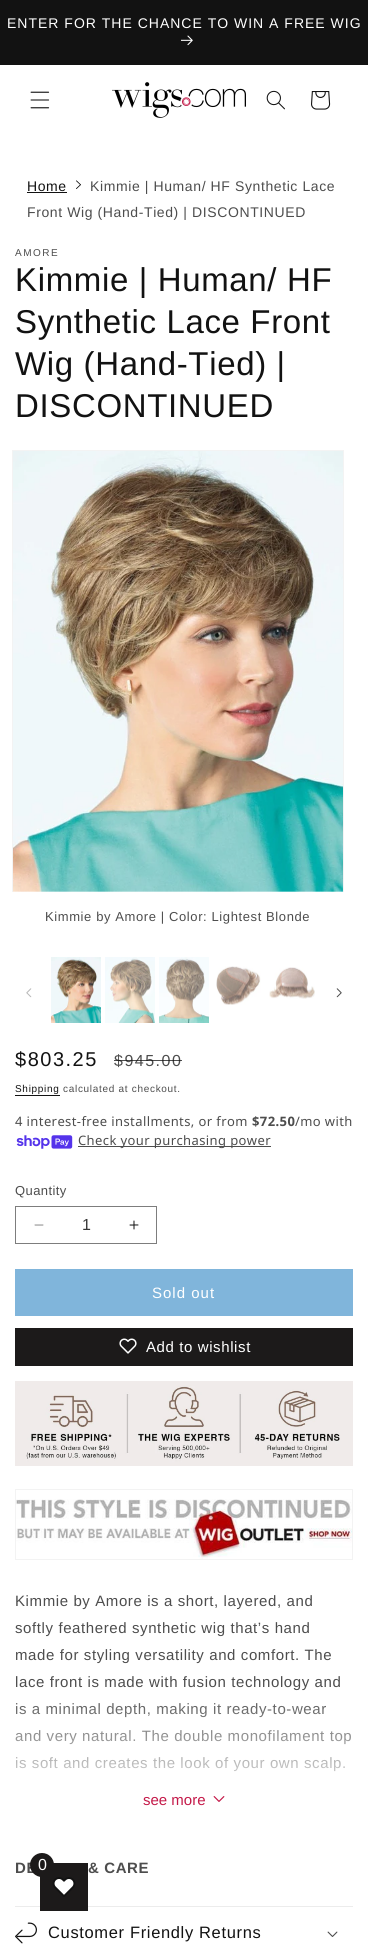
#include <cairo.h>
#include <math.h>
#include <stddef.h>

static cairo_t *c;
static void C(unsigned color){cairo_set_source_rgb(c, (color >> 16) / 255.0, (color >> 8 & 255) / 255.0, (color & 255) / 255.0);}
static void F(const char *family, double size, int italic, int bold){cairo_select_font_face(c, family, italic ? CAIRO_FONT_SLANT_ITALIC : CAIRO_FONT_SLANT_NORMAL,bold ? CAIRO_FONT_WEIGHT_BOLD : CAIRO_FONT_WEIGHT_NORMAL);cairo_set_font_size(c, size);}
static void T(double x, double y, const char *s){cairo_move_to(c, x, y);cairo_show_text(c, s);}
static void L(double x, double y, const char *s, double letter, double word){cairo_move_to(c, x, y);while (*s) {char ch[5] = {0};int n = 0;do ch[n++] = *s++; while ((*s & 0xC0) == 0x80);cairo_show_text(c, ch);cairo_rel_move_to(c, letter + word * (*ch == ' '), 0);}}
static void R(double x, double y, double w, double h){cairo_rectangle(c, x, y, w, h);cairo_fill(c);}
static void I(const char *path, double x, double y, double w, double h){cairo_surface_t *image = cairo_image_surface_create_from_png(path);cairo_save(c);cairo_set_source_surface(c, image, x, y);cairo_rectangle(c, x, y, w, h);cairo_fill(c);cairo_restore(c);cairo_surface_destroy(image);}
int main(void) {
cairo_surface_t *surface = cairo_image_surface_create(CAIRO_FORMAT_RGB24, 368, 1951);
c = cairo_create(surface);
cairo_font_options_t *options = cairo_font_options_create();
cairo_font_options_set_hint_metrics(options, CAIRO_HINT_METRICS_OFF);
cairo_font_options_set_hint_style(options, CAIRO_HINT_STYLE_NONE);
cairo_set_font_options(c, options);
cairo_set_miter_limit(c, 4);
cairo_pattern_t *gradient;
C(0xffffff);
cairo_paint(c);
C(0x121212);
R(0,0,368,65);
F("Liberation Sans",14,0,0);
C(0xffffff);
L(7,28,"ENTER FOR THE CHANCE TO WIN A FREE WIG",1,0);
I("1.png",181,35,12,11);
I("2.png",30,91,20,18);
I("3.png",112,82,134,36);
I("4.png",266,90,19,20);
I("5.png",311,91,20,19);
C(0x121212);
L(27,191,"Home",.6,0);
R(27,192,40,1);
I("6.png",76,180,5,9);
C(0x4d4d4d);
L(90,191,"Kimmie | Human/ HF Synthetic Lace",.6,0);
L(27,217,"Front Wig (Hand-Tied) | DISCONTINUED",.6,0);
F("Liberation Sans",10,0,0);
L(15,256,"AMORE",1.5,0);
F("Liberation Sans",33,0,0);
C(0x121212);
L(15,291,"Kimmie | Human/ HF",.65,0);
L(15,333,"Synthetic Lace Front",.65,0);
L(15,375,"Wig (Hand-Tied) |",.65,0);
L(15,417,"DISCONTINUED",.65,0);
cairo_save(c);
cairo_rectangle(c,12,450,332,442);
cairo_clip(c);
cairo_rectangle(c,12.5,450.5,331,442);
C(0xf3f3f3);
cairo_set_line_width(c,1);
cairo_stroke(c);
cairo_restore(c);
I("7.png",13,451,330,441);
F("Liberation Sans",13,0,0);
C(0x4d4d4d);
L(45,921,"Kimmie by Amore | Color: Lightest Blonde",.6,0);
I("8.png",26,988,6,10);
I("9.png",51,957,50,66);
I("10.png",105,957,50,66);
I("11.png",159,957,50,66);
I("12.png",216,966,45,39);
I("13.png",269,967,46,32);
I("14.png",336,988,6,10);
F("Liberation Sans",20,0,0);
C(0x121212);
L(15,1066,"$803.25",1.5,0);
F("Liberation Sans",16,0,0);
C(0x4d4d4d);
L(114,1066,"$945.00",1.5,0);
cairo_set_source_rgba(c,0.071,0.071,0.071,0.75);
R(114,1060,68,1);
F("Liberation Sans",10,0,0);
C(0x121212);
L(15,1092,"Shipping",.7,0);
R(15,1095,45,1);
C(0x4d4d4d);
L(63,1092,"calculated at checkout.",.7,0);
F("Noto Sans",13,0,0);
L(15,1126,"4 interest-free installments, or from",.4,0);
F("Noto Sans",13,0,1);
L(252,1126,"$72.50",.4,0);
F("Noto Sans",13,0,0);
L(295,1126,"/mo with",.4,0);
I("15.png",16,1135,57,14);
R(78,1146,193,1);
L(78,1145,"Check your purchasing power",.4,0);
F("Liberation Sans",13,0,0);
L(15,1195,"Quantity",.4,0);
I("16.png",34,1224,10,2);
I("17.png",129,1220,10,10);
cairo_rectangle(c,15.5,1206.5,141,37);
C(0x7d7d7d);
cairo_set_line_width(c,1);
cairo_stroke(c);
F("Liberation Sans",16,0,0);
C(0x363636);
T(82,1230,"1");
C(0x80b5db);
R(15,1269,338,47);
F("Liberation Sans",15,0,0);
C(0xffffff);
L(152,1298,"Sold out",1,0);
C(0x1c1a1a);
R(15,1328,338,38);
I("18.png",119,1338,18,16);
C(0xffffff);
L(146,1352,"Add to wishlist",.6,0);
I("19.png",15,1381,338,85);
cairo_rectangle(c,15.5,1489.5,337,70);
C(0xf3f3f3);
cairo_stroke(c);
I("20.png",16,1499,336,60);
C(0x4d4d4d);
L(15,1606,"Kimmie by Amore is a short, layered, and",.6,0);
L(15,1633,"softly feathered synthetic wig that’s hand",.6,0);
L(15,1660,"made for styling versatility and comfort. The",.6,0);
L(15,1687,"lace front is made with fusion technology and",.6,0);
L(15,1714,"is a minimal depth, making it ready-to-wear",.6,0);
L(15,1741,"and very natural. The double monofilament top",.6,0);
L(15,1768,"is soft and creates the look of your own scalp.",.6,0);
gradient = cairo_pattern_create_linear(184,1809,184,1689);
cairo_pattern_add_color_stop_rgba(gradient,0,1,1,1,1);
cairo_pattern_add_color_stop_rgba(gradient,1,1,1,1,0);
cairo_set_source(c,gradient);
cairo_pattern_destroy(gradient);
R(15,1703,336,69);
C(0xc41949);
T(143,1805,"see more");
I("21.png",213,1796,12,6);
F("Liberation Sans",15,0,1);
C(0x4d4d4d);
L(15,1873,"DE",.6,0);
L(88,1873,"& CARE",.6,0);
C(0xececec);
R(15,1906,338,1);
I("22.png",15,1922,22,22);
F("Liberation Sans",16.5,0,0);
C(0x121212);
L(48,1938,"Customer Friendly Returns",.65,0);
I("23.png",327,1931,11,6);
C(0x1c1a1a);
R(40,1863,48,48);
cairo_arc(c,42,1865,12,0,2 * M_PI);
cairo_fill(c);
F("Liberation Sans",16,0,0);
C(0xffffff);
L(38,1870,"0",.6,0);
I("24.png",52,1877,24,20);
cairo_surface_write_to_png(surface, "o.png");
cairo_font_options_destroy(options);
cairo_destroy(c);
cairo_surface_destroy(surface);
return 0;
}
